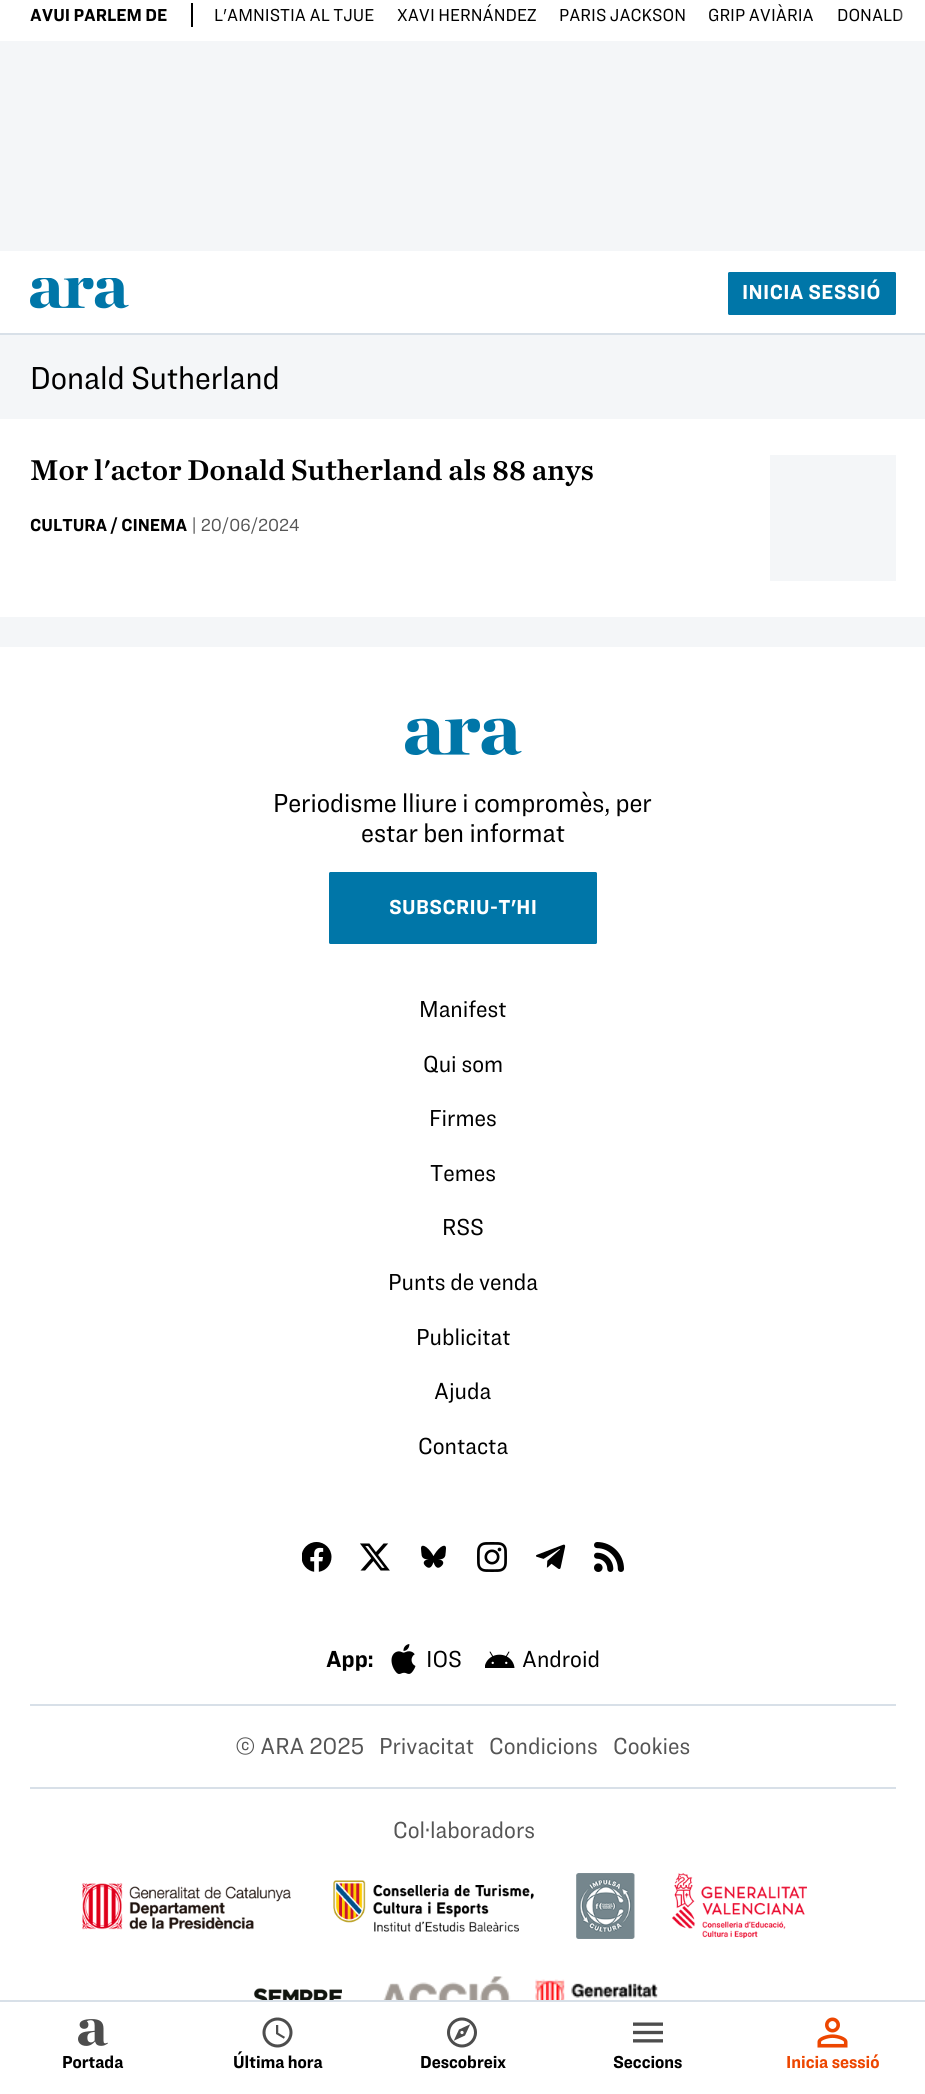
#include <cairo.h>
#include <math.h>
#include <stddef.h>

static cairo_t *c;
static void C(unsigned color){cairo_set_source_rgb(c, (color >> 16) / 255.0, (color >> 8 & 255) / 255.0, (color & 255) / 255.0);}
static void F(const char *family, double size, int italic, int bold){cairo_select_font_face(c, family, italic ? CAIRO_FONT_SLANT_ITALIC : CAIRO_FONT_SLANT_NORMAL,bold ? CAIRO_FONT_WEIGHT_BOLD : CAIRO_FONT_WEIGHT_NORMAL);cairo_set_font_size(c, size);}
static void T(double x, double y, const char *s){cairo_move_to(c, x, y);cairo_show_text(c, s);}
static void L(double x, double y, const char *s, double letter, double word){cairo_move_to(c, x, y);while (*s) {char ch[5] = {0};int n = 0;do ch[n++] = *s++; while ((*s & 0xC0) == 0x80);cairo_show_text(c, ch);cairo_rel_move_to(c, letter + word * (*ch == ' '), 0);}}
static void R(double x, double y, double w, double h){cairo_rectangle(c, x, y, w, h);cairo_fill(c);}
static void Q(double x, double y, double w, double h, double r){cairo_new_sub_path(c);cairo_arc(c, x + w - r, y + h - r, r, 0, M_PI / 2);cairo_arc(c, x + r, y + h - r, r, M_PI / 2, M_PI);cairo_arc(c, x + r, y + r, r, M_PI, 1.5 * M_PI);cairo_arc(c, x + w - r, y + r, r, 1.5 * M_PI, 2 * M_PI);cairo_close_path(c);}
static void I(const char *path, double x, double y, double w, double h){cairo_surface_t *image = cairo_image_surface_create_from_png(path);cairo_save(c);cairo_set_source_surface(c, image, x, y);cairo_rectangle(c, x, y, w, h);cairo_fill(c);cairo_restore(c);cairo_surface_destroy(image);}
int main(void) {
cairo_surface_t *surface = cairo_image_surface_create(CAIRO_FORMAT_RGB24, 925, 2094);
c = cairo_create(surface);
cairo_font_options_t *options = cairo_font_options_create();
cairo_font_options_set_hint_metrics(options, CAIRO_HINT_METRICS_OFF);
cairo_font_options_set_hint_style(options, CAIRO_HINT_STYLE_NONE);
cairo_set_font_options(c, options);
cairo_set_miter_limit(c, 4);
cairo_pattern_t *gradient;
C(0xffffff);
cairo_paint(c);
F("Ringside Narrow",18,0,1);
C(0x000000);
T(30,21,"AVUI PARLEM DE");
R(191,3,2,24);
F("Ringside Narrow",18,0,0);
T(214,21,"L'AMNISTIA AL TJUE");
T(397,21,"XAVI HERNÁNDEZ");
T(559,21,"PARIS JACKSON");
T(708,21,"GRIP AVIÀRIA");
T(837,21,"DONALD");
gradient = cairo_pattern_create_linear(896,14,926,14);
cairo_pattern_add_color_stop_rgba(gradient,0,1,1,1,0);
cairo_pattern_add_color_stop_rgba(gradient,.6,1,1,1,1);
cairo_pattern_add_color_stop_rgba(gradient,1,1,1,1,1);
cairo_set_source(c,gradient);
cairo_pattern_destroy(gradient);
R(896,9,6,12);
C(0xf4f6f8);
R(0,41,925,210);
I("1.png",30,278,99,31);
C(0x0076a8);
Q(728,272,168,43,1.5);
cairo_fill(c);
F("Ringside Narrow",21,0,1);
C(0xffffff);
L(742,299,"INICIA SESSIÓ",.4,0);
C(0xd8e0e8);
R(0,333,925,2);
C(0xf4f6f8);
R(0,335,925,84);
F("Ringside Narrow",33,0,0);
C(0x000000);
L(30,389,"Donald Sutherland",-.1,0);
F("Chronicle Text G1",30,0,0);
T(30,480,"Mor l'actor Donald Sutherland als 88 anys");
F("Ringside Narrow",18,0,1);
T(30,531,"CULTURA / CINEMA");
F("Ringside Narrow",18,0,0);
C(0x555555);
T(191,531,"| 20/06/2024");
C(0xf4f6f8);
R(770,455,126,126);
R(0,617,925,30);
I("2.png",405,718,117,37);
F("Ringside Narrow",27,0,0);
C(0x000000);
T(273,812,"Periodisme lliure i compromès, per");
T(361,842,"estar ben informat");
C(0x0076a8);
Q(329,872,268,72,1.5);
cairo_fill(c);
F("Ringside Narrow",21,0,1);
C(0xffffff);
L(389,914,"SUBSCRIU-T'HI",.4,0);
F("Ringside Narrow",24,0,0);
C(0x000000);
T(419,1017,"Manifest");
T(423,1072,"Qui som");
T(429,1126,"Firmes");
T(430,1181,"Temes");
T(442,1235,"RSS");
T(388,1290,"Punts de venda");
T(416,1345,"Publicitat");
T(434,1399,"Ajuda");
T(418,1454,"Contacta");
I("3.png",302,1542,30,30);
I("4.png",360,1543,30,28);
I("5.png",421,1545,25,23);
I("6.png",477,1542,30,30);
I("7.png",536,1544,30,25);
I("8.png",594,1542,30,30);
F("Ringside Narrow",24,0,1);
T(326,1667,"App:");
I("9.png",391,1644,25,30);
F("Ringside Narrow",24,0,0);
T(426,1667,"IOS");
I("10.png",485,1651,30,17);
T(522,1667,"Android");
C(0xd8e0e8);
R(30,1704,866,2);
R(30,1787,866,2);
C(0x555555);
T(235,1754,"© ARA 2025");
T(379,1754,"Privacitat");
T(489,1754,"Condicions");
T(613,1754,"Cookies");
T(393,1838,"Col·laboradors");
I("11.png",82,1883,209,47);
I("12.png",333,1880,201,52);
I("13.png",576,1873,59,66);
I("14.png",672,1873,135,66);
I("15.png",253,1988,89,12);
I("16.png",383,1976,275,24);
C(0xd8e0e8);
R(0,2000,925,2);
I("17.png",78,2019,30,27);
F("Ringside Narrow",18,0,1);
C(0x000000);
T(62,2068,"Portada");
I("18.png",262,2017,31,31);
T(233,2068,"Última hora");
I("19.png",447,2017,30,31);
T(420,2068,"Descobreix");
I("20.png",633,2022,30,21);
T(613,2068,"Seccions");
I("21.png",817,2017,31,31);
C(0xed4600);
T(786,2068,"Inicia sessió");
cairo_surface_write_to_png(surface, "o.png");
cairo_font_options_destroy(options);
cairo_destroy(c);
cairo_surface_destroy(surface);
return 0;
}
